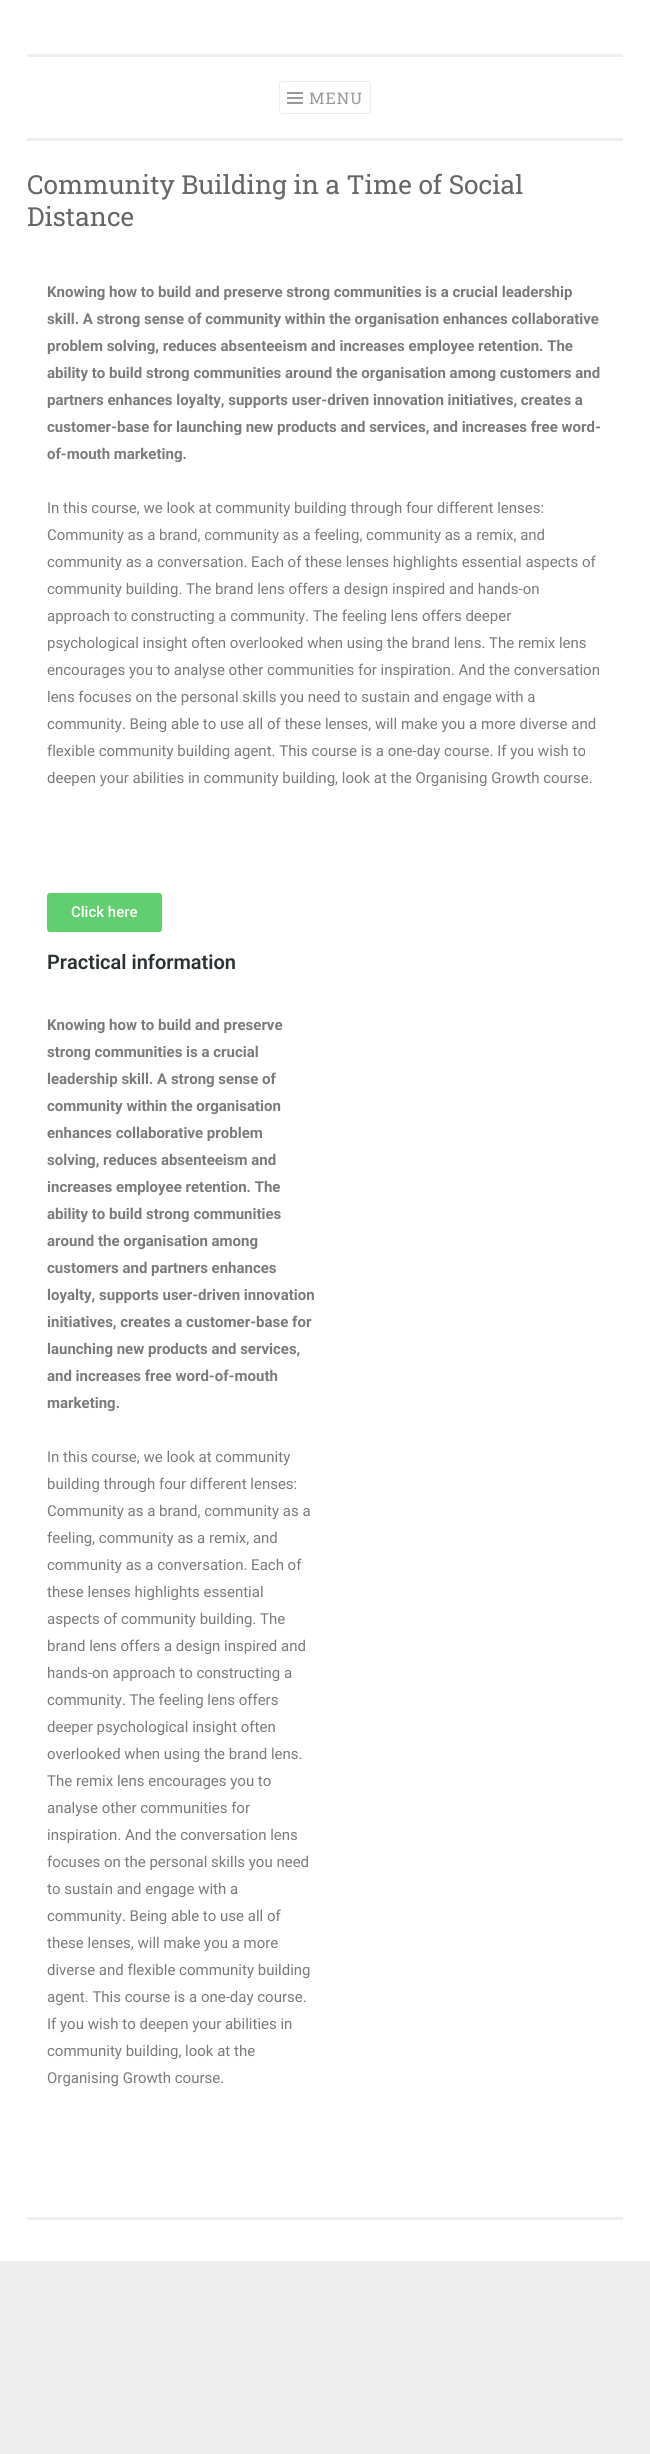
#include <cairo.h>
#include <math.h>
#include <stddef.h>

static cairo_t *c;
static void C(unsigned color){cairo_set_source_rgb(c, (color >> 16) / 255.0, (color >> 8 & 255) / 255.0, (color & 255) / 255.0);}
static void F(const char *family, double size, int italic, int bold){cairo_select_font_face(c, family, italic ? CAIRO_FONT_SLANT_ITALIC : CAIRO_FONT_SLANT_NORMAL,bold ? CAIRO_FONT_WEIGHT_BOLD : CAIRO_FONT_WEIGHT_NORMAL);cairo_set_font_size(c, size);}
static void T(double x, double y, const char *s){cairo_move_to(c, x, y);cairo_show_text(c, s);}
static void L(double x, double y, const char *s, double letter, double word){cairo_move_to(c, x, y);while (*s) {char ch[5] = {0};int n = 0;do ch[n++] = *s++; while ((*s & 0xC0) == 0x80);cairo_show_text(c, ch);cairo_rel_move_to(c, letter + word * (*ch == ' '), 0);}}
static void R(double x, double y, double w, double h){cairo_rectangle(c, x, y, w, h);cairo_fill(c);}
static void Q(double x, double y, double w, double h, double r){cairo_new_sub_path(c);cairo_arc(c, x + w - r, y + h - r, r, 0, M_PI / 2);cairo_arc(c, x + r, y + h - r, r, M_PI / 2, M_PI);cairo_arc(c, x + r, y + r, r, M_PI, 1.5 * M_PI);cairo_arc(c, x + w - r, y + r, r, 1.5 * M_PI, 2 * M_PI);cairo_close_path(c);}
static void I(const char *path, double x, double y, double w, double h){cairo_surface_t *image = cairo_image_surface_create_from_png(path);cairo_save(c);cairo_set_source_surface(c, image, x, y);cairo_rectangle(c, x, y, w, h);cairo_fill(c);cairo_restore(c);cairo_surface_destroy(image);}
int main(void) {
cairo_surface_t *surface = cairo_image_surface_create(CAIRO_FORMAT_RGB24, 650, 2454);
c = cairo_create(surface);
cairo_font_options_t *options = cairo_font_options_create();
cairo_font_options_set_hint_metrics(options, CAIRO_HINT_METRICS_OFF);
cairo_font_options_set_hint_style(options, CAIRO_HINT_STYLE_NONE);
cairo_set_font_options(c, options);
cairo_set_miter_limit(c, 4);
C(0xeeeeee);
cairo_paint(c);
C(0xffffff);
R(0,0,650,2261);
C(0xeeeeee);
R(27,138,596,3);
R(27,54,596,3);
Q(279.5,81.5,91,32,2.5);
cairo_set_line_width(c,1);
cairo_stroke(c);
I("1.png",287,92,16,12);
F("Roboto Slab",16,0,0);
C(0x999999);
L(309,104,"MENU",1,0);
F("Roboto Slab",26.25,0,0);
C(0x666666);
T(27,194,"Community Building in a Time of Social");
T(27,226,"Distance");
F("Roboto",15,0,1);
C(0x7a7a7a);
T(47,297,"Knowing how to build and preserve strong communities is a crucial leadership");
T(47,324,"skill. A strong sense of community within the organisation enhances collaborative");
T(47,351,"problem solving, reduces absenteeism and increases employee retention. The");
T(47,378,"ability to build strong communities around the organisation among customers and");
T(47,405,"partners enhances loyalty, supports user-driven innovation initiatives, creates a");
T(47,432,"customer-base for launching new products and services, and increases free word-");
T(47,459,"of-mouth marketing.");
F("Roboto",15,0,0);
T(47,513,"In this course, we look at community building through four different lenses:");
T(47,540,"Community as a brand, community as a feeling, community as a remix, and");
T(47,567,"community as a conversation. Each of these lenses highlights essential aspects of");
T(47,594,"community building. The brand lens offers a design inspired and hands-on");
T(47,621,"approach to constructing a community. The feeling lens offers deeper");
T(47,648,"psychological insight often overlooked when using the brand lens. The remix lens");
T(47,675,"encourages you to analyse other communities for inspiration. And the conversation");
T(47,702,"lens focuses on the personal skills you need to sustain and engage with a");
T(47,729,"community. Being able to use all of these lenses, will make you a more diverse and");
T(47,756,"flexible community building agent. This course is a one-day course. If you wish to");
T(47,783,"deepen your abilities in community building, look at the Organising Growth course.");
C(0x61ce70);
Q(47,893,115,39,3);
cairo_fill(c);
F("Roboto Medium",15,0,0);
C(0xffffff);
T(71,917,"Click here");
F("Roboto SemiBold",20,0,0);
C(0x2a3132);
T(47,969,"Practical information");
F("Roboto",15,0,1);
C(0x7a7a7a);
T(47,1030,"Knowing how to build and preserve");
T(47,1057,"strong communities is a crucial");
T(47,1084,"leadership skill. A strong sense of");
T(47,1111,"community within the organisation");
T(47,1138,"enhances collaborative problem");
T(47,1165,"solving, reduces absenteeism and");
T(47,1192,"increases employee retention. The");
T(47,1219,"ability to build strong communities");
T(47,1246,"around the organisation among");
T(47,1273,"customers and partners enhances");
T(47,1300,"loyalty, supports user-driven innovation");
T(47,1327,"initiatives, creates a customer-base for");
T(47,1354,"launching new products and services,");
T(47,1381,"and increases free word-of-mouth");
T(47,1408,"marketing.");
F("Roboto",15,0,0);
T(47,1462,"In this course, we look at community");
T(47,1489,"building through four different lenses:");
T(47,1516,"Community as a brand, community as a");
T(47,1543,"feeling, community as a remix, and");
T(47,1570,"community as a conversation. Each of");
T(47,1597,"these lenses highlights essential");
T(47,1624,"aspects of community building. The");
T(47,1651,"brand lens offers a design inspired and");
T(47,1678,"hands-on approach to constructing a");
T(47,1705,"community. The feeling lens offers");
T(47,1732,"deeper psychological insight often");
T(47,1759,"overlooked when using the brand lens.");
T(47,1786,"The remix lens encourages you to");
T(47,1813,"analyse other communities for");
T(47,1840,"inspiration. And the conversation lens");
T(47,1867,"focuses on the personal skills you need");
T(47,1894,"to sustain and engage with a");
T(47,1921,"community. Being able to use all of");
T(47,1948,"these lenses, will make you a more");
T(47,1975,"diverse and flexible community building");
T(47,2002,"agent. This course is a one-day course.");
T(47,2029,"If you wish to deepen your abilities in");
T(47,2056,"community building, look at the");
T(47,2083,"Organising Growth course.");
C(0xeeeeee);
R(27,2217,596,3);
cairo_surface_write_to_png(surface, "o.png");
cairo_font_options_destroy(options);
cairo_destroy(c);
cairo_surface_destroy(surface);
return 0;
}
